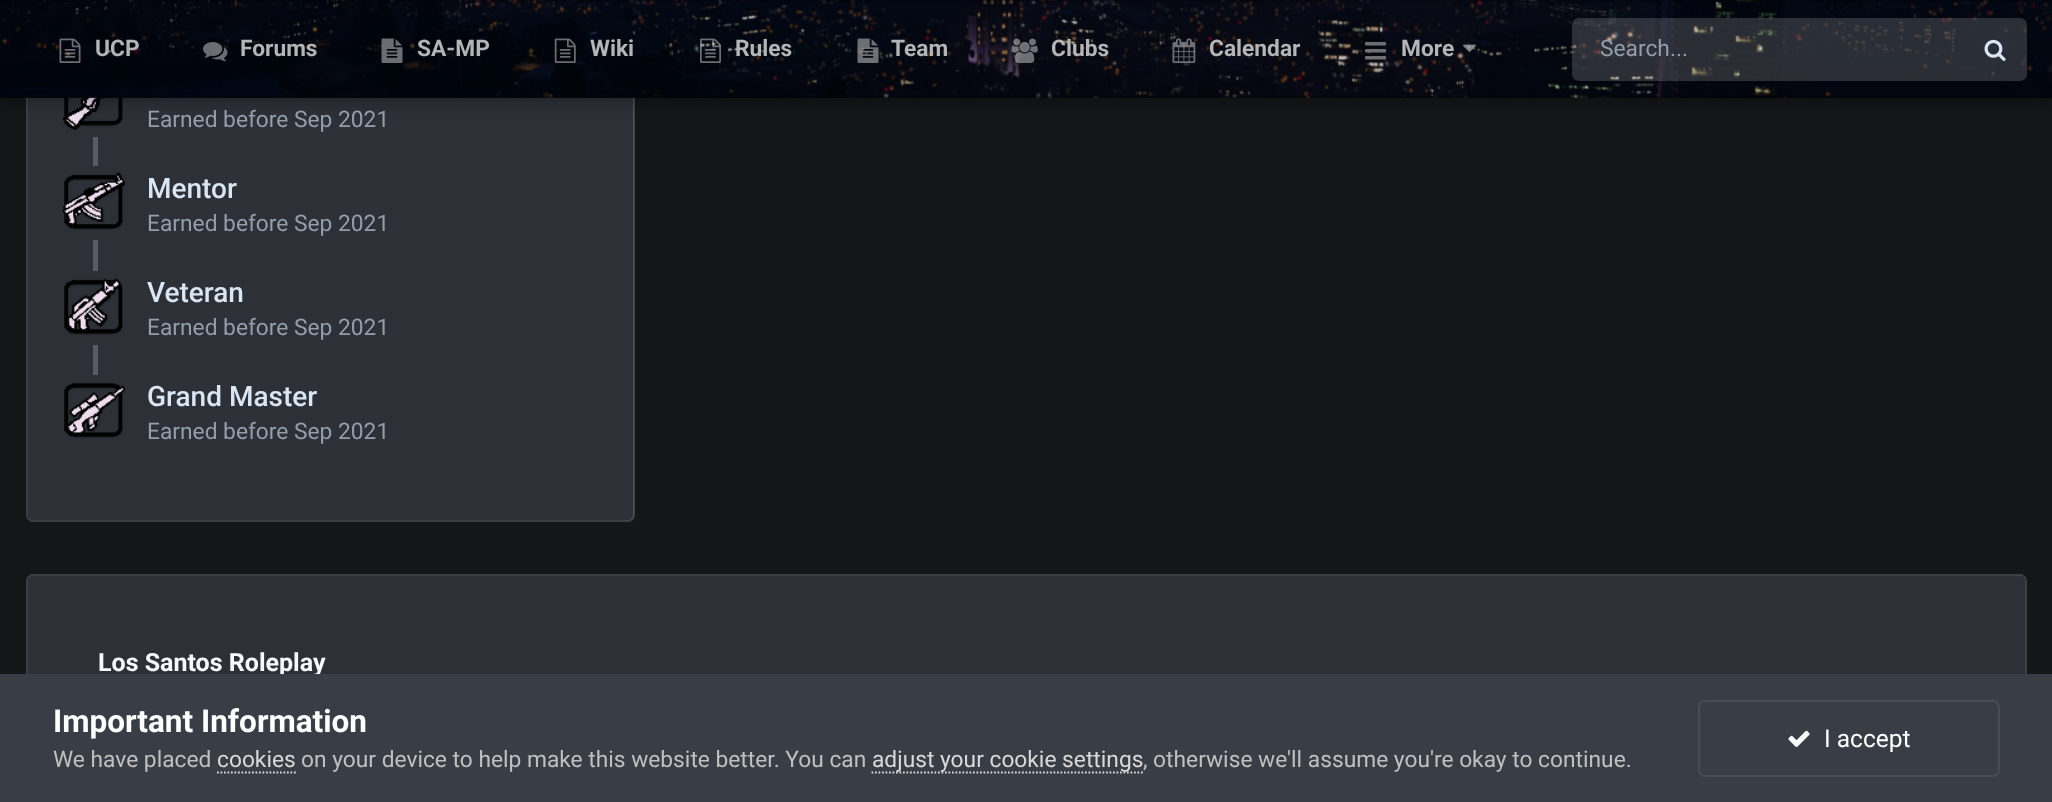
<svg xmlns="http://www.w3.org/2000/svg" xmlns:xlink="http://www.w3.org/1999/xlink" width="2052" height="802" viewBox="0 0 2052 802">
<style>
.cls-1{font:bold 22.75px Roboto;fill:#b4b5b7}
.cls-2{font:22.75px Roboto;fill:#939dac}
.cls-3{font:500 28px Roboto;fill:#dae6f3}
.cls-4{font:bold 25px Roboto;fill:#f7fafe}
.cls-5{font:bold 31.5px Roboto;fill:#ffffff}
.cls-6{font:22.75px Roboto;fill:#c0c0c0}
.cls-7{font:22.75px Roboto;fill:#dadada}
.cls-8{font:24.5px Roboto;fill:#ffffff}
</style>
<rect width="100%" height="100%" fill="#151617"/>
<rect fill="#2d3037" x="28" y="-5" width="606" height="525" rx="5"/>
<rect fill="none" stroke="#dae6f3" stroke-opacity="0.2" stroke-width="2" x="27" y="-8" width="607" height="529" rx="6"/>
<image xlink:href="image12.png" x="63" y="97" width="61" height="33"/>
<rect fill="#000000" fill-opacity="0.35" filter="blur(9px)" x="0" y="-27" width="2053" height="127"/>
<image xlink:href="image0.png" x="0" y="0" width="2052" height="98"/>
<rect fill="#000000" fill-opacity="0.2" x="0" y="0" width="2052" height="98"/>
<rect fill="#000000" fill-opacity="0.2" x="0" y="0" width="2052" height="2"/>
<rect fill="#000000" fill-opacity="0.2" x="0" y="96" width="2052" height="2"/>
<image xlink:href="image1.png" x="59" y="38" width="22" height="25"/>
<image xlink:href="image2.png" x="203" y="42" width="25" height="20"/>
<image xlink:href="image3.png" x="381" y="38" width="22" height="25"/>
<image xlink:href="image4.png" x="554" y="38" width="22" height="25"/>
<image xlink:href="image5.png" x="700" y="38" width="21" height="25"/>
<image xlink:href="image6.png" x="857" y="38" width="22" height="25"/>
<image xlink:href="image7.png" x="1011" y="38" width="27" height="25"/>
<image xlink:href="image8.png" x="1172" y="38" width="24" height="25"/>
<image xlink:href="image9.png" x="1365" y="42" width="21" height="18"/>
<image xlink:href="image10.png" x="1463" y="44" width="13" height="8"/>
<rect fill="#ffffff" fill-opacity="0.16" x="1572" y="18" width="455" height="63" rx="7"/>
<image xlink:href="image11.png" x="1984" y="39" width="22" height="22"/>
<rect fill="#565c66" x="93" y="137" width="5" height="238"/>
<rect fill="#2d3037" x="93" y="166" width="5" height="74"/>
<image xlink:href="image13.png" x="63" y="172" width="62" height="58"/>
<rect fill="#2d3037" x="93" y="271" width="5" height="74"/>
<image xlink:href="image14.png" x="64" y="278" width="59" height="57"/>
<image xlink:href="image15.png" x="64" y="383" width="62" height="55"/>
<rect fill="#2d3037" x="28" y="576" width="1997" height="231" rx="5"/>
<rect fill="none" stroke="#dae6f3" stroke-opacity="0.2" stroke-width="2" x="27" y="575" width="1999" height="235" rx="6"/>
<text class="cls-1" x="95" y="56">UCP</text>
<text class="cls-1" x="240" y="56">Forums</text>
<text class="cls-1" x="417" y="56">SA-MP</text>
<text class="cls-1" x="590" y="56">Wiki</text>
<text class="cls-1" x="735" y="56">Rules</text>
<text class="cls-1" x="891" y="56">Team</text>
<text class="cls-1" x="1051" y="56">Clubs</text>
<text class="cls-1" x="1209" y="56">Calendar</text>
<text class="cls-1" x="1401" y="56">More</text>
<text class="cls-2" x="1600" y="56">Search...</text>
<text class="cls-2" x="147" y="127">Earned before Sep 2021</text>
<text class="cls-3" x="147" y="198">Mentor</text>
<text class="cls-2" x="147" y="231">Earned before Sep 2021</text>
<text class="cls-3" x="147" y="302">Veteran</text>
<text class="cls-2" x="147" y="335">Earned before Sep 2021</text>
<text class="cls-3" x="147" y="406">Grand Master</text>
<text class="cls-2" x="147" y="439">Earned before Sep 2021</text>
<text class="cls-4" x="98" y="671">Los Santos Roleplay</text>
<rect fill="#393d46" x="0" y="674" width="2052" height="128"/>
<text class="cls-5" x="53" y="732">Important Information</text>
<text class="cls-6" x="53" y="767">We have placed</text>
<text class="cls-7" x="217" y="767">cookies</text>
<path fill="none" stroke="#dadada" stroke-width="1.8" stroke-dasharray="1.75 1.75" d="M217 772.5H296"/>
<text class="cls-6" x="301" y="767">on your device to help make this website better. You can</text>
<path fill="none" stroke="#dadada" stroke-width="1.8" stroke-dasharray="1.75 1.75" d="M871.5 772.5H1143"/>
<text class="cls-7" x="872" y="767">adjust your cookie settings</text>
<text class="cls-6" x="1143" y="767">, otherwise we'll assume you're okay to continue.</text>
<rect fill="none" stroke="#484c54" stroke-width="2" x="1699" y="701" width="300" height="75" rx="6"/>
<image xlink:href="image16.png" x="1788" y="730" width="22" height="17"/>
<text class="cls-8" x="1824" y="747">I accept</text>
</svg>
